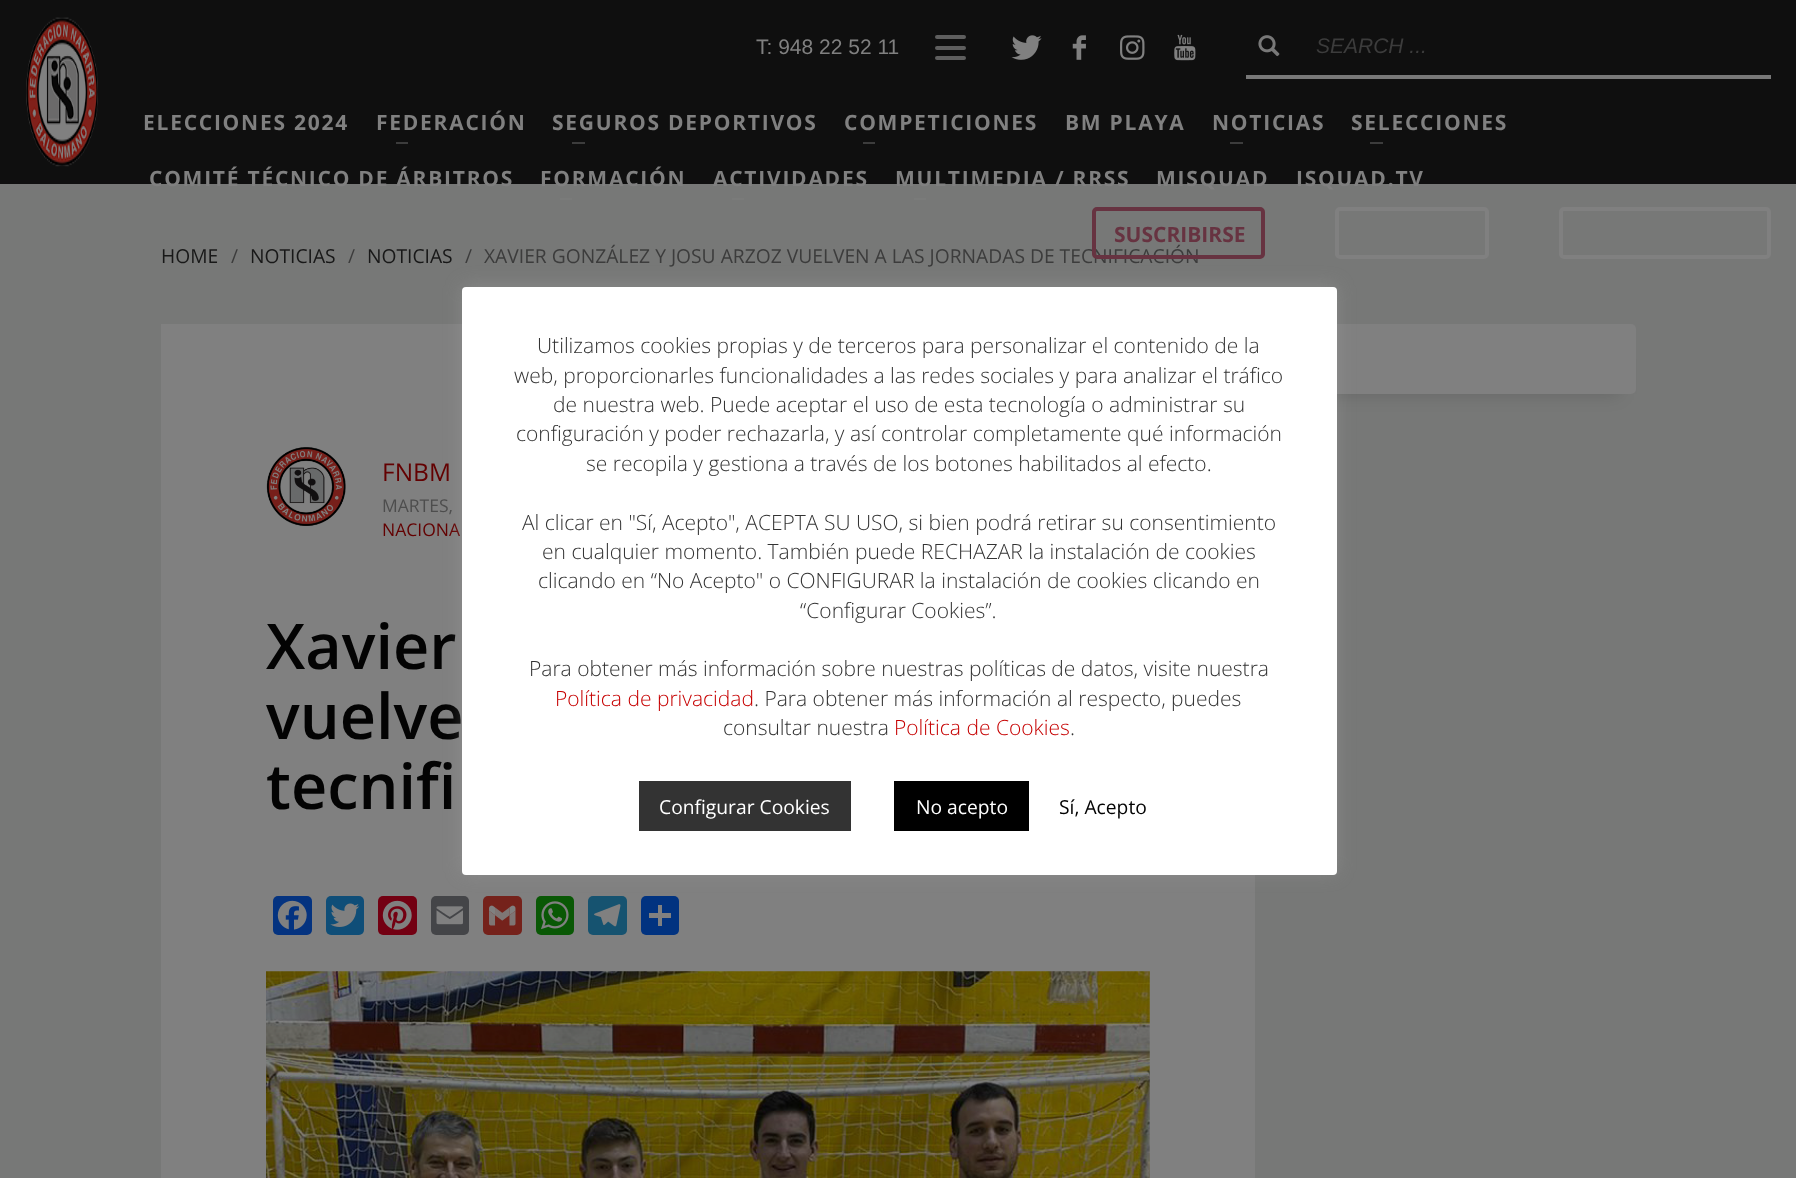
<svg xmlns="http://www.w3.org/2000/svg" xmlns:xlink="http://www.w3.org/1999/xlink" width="1796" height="1178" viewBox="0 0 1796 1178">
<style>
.cls-1{font:21px Liberation Sans;fill:#808080}
.cls-2{font:italic 21px Liberation Sans;fill:#3c3c3c}
.cls-3{font:bold 21px Open Sans;letter-spacing:1.75px;fill:#808080}
.cls-4{font:19.25px Open Sans;fill:#181818}
.cls-5{font:19.25px Open Sans;fill:#3c3c3c}
.cls-6{font:bold 21px Open Sans;fill:#673341}
.cls-7{font:24.5px Open Sans;fill:#630001}
.cls-8{font:17.5px Open Sans;fill:#4d4d4d}
.cls-9{font:17.5px Open Sans;fill:#630001}
.cls-10{font:600 63px Open Sans;fill:#030303}
.cls-11{font:300 21px Open Sans;fill:#333333}
.cls-12{font:300 21px Open Sans;fill:#c60001}
.cls-13{font:19.25px Open Sans;fill:#ffffff}
.cls-14{font:19.25px Open Sans;fill:#030303}
</style>
<rect width="100%" height="100%" fill="#777877"/>
<rect fill="#0f0f0f" x="0" y="0" width="1796" height="184"/>
<image xlink:href="image0.png" x="26" y="17" width="72" height="150"/>
<rect fill="#5e5e5e" x="935" y="56" width="31" height="4" rx="2"/>
<rect fill="#5e5e5e" x="935" y="46" width="31" height="4" rx="2"/>
<rect fill="#5e5e5e" x="935" y="35" width="31" height="4" rx="2"/>
<image xlink:href="image1.png" x="1011" y="35" width="31" height="25"/>
<image xlink:href="image2.png" x="1072" y="35" width="14" height="25"/>
<image xlink:href="image3.png" x="1120" y="35" width="25" height="25"/>
<image xlink:href="image4.png" x="1174" y="34" width="22" height="27"/>
<image xlink:href="image5.png" x="1258" y="35" width="22" height="22"/>
<rect fill="#787878" x="1246" y="75" width="525" height="4"/>
<rect fill="#3c3c3c" x="396" y="142" width="12" height="2"/>
<rect fill="#3c3c3c" x="572" y="142" width="13" height="2"/>
<rect fill="#3c3c3c" x="863" y="142" width="12" height="2"/>
<rect fill="#3c3c3c" x="1230" y="142" width="13" height="2"/>
<rect fill="#3c3c3c" x="1370" y="142" width="13" height="2"/>
<rect fill="#7a7b7a" x="560" y="198" width="12" height="2"/>
<rect fill="#7a7b7a" x="732" y="198" width="12" height="2"/>
<rect fill="#7a7b7a" x="914" y="198" width="12" height="2"/>
<rect fill="none" stroke="#808080" stroke-width="4" x="1337" y="209" width="150" height="48" rx="3"/>
<rect fill="none" stroke="#808080" stroke-width="4" x="1561" y="209" width="208" height="48" rx="3"/>
<rect fill="#000000" fill-opacity="0.15" filter="blur(9px)" x="1325" y="359" width="294" height="35"/>
<rect fill="#808080" x="1307" y="324" width="329" height="70" rx="5"/>
<rect fill="#808080" x="161" y="324" width="1094" height="854"/>
<image xlink:href="image6.png" x="266" y="447" width="80" height="79"/>
<rect fill="#043380" x="273" y="896" width="39" height="39" rx="5"/>
<image xlink:href="image7.png" x="277" y="900" width="30" height="30"/>
<rect fill="#0f4e78" x="326" y="896" width="38" height="39" rx="5"/>
<image xlink:href="image8.png" x="330" y="903" width="29" height="24"/>
<rect fill="#730012" x="378" y="896" width="39" height="39" rx="5"/>
<image xlink:href="image9.png" x="382" y="900" width="30" height="30"/>
<rect fill="#444548" x="431" y="896" width="38" height="39" rx="5"/>
<image xlink:href="image10.png" x="436" y="906" width="27" height="19"/>
<rect fill="#75221b" x="483" y="896" width="39" height="39" rx="5"/>
<image xlink:href="image11.png" x="489" y="905" width="27" height="21"/>
<rect fill="#095805" x="536" y="896" width="38" height="39" rx="5"/>
<image xlink:href="image12.png" x="541" y="901" width="28" height="29"/>
<rect fill="#165370" x="588" y="896" width="39" height="39" rx="5"/>
<image xlink:href="image13.png" x="594" y="904" width="27" height="23"/>
<rect fill="#013380" x="641" y="896" width="38" height="39" rx="5"/>
<rect fill="#808080" x="658" y="905" width="4" height="21"/>
<rect fill="#808080" x="649" y="913" width="22" height="5"/>
<image xlink:href="image14.png" x="266" y="971" width="884" height="207"/>
<text class="cls-1" x="756" y="54">T: 948 22 52 11</text>
<text class="cls-2" x="1316" y="53">SEARCH ...</text>
<text class="cls-3" x="143" y="130">ELECCIONES 2024</text>
<text class="cls-3" x="376" y="130">FEDERACIÓN</text>
<text class="cls-3" x="552" y="130">SEGUROS DEPORTIVOS</text>
<text class="cls-3" x="844" y="130">COMPETICIONES</text>
<text class="cls-3" x="1065" y="130">BM PLAYA</text>
<text class="cls-3" x="1212" y="130">NOTICIAS</text>
<text class="cls-3" x="1351" y="130">SELECCIONES</text>
<text class="cls-3" x="149" y="186">COMITÉ TÉCNICO DE ÁRBITROS</text>
<text class="cls-3" x="540" y="186">FORMACIÓN</text>
<text class="cls-3" x="713" y="186">ACTIVIDADES</text>
<text class="cls-3" x="895" y="186">MULTIMEDIA / RRSS</text>
<text class="cls-3" x="1156" y="186">MISQUAD</text>
<text class="cls-3" x="1296" y="186">ISQUAD.TV</text>
<text class="cls-4" x="161" y="263">HOME</text>
<text class="cls-5" x="231" y="263">/</text>
<text class="cls-4" x="250" y="263">NOTICIAS</text>
<text class="cls-5" x="348" y="263">/</text>
<text class="cls-4" x="367" y="263">NOTICIAS</text>
<text class="cls-5" x="465" y="263">/</text>
<text class="cls-5" x="484" y="263">XAVIER GONZÁLEZ Y JOSU ARZOZ VUELVEN A LAS JORNADAS DE TECNIFICACIÓN</text>
<rect fill="none" stroke="#673341" stroke-width="4" x="1094" y="209" width="169" height="48" rx="3"/>
<text class="cls-6" x="1114" y="242">SUSCRIBIRSE</text>
<text class="cls-7" x="382" y="481">FNBM</text>
<text class="cls-8" x="382" y="512">MARTES,</text>
<text class="cls-9" x="382" y="536">NACIONA</text>
<text class="cls-10"><tspan x="266" y="669">Xavier</tspan><tspan x="266" y="739">vuelve</tspan><tspan x="266" y="809">tecnifi</tspan></text>
<rect fill="#acabab" fill-opacity="0.3" filter="blur(9px)" x="462" y="285" width="875" height="588" rx="4"/>
<rect fill="#ffffff" x="462" y="287" width="875" height="588" rx="4"/>
<text class="cls-11" x="537" y="353">Utilizamos cookies propias y de terceros para personalizar el contenido de la</text>
<text class="cls-11" x="514" y="383">web, proporcionarles funcionalidades a las redes sociales y para analizar el tráfico</text>
<text class="cls-11" x="553" y="412">de nuestra web. Puede aceptar el uso de esta tecnología o administrar su</text>
<text class="cls-11" x="516" y="441">configuración y poder rechazarla, y así controlar completamente qué información</text>
<text class="cls-11" x="586" y="471">se recopila y gestiona a través de los botones habilitados al efecto.</text>
<text class="cls-11" x="522" y="530">Al clicar en "Sí, Acepto", ACEPTA SU USO, si bien podrá retirar su consentimiento</text>
<text class="cls-11" x="542" y="559">en cualquier momento. También puede RECHAZAR la instalación de cookies</text>
<text class="cls-11" x="538" y="588">clicando en “No Acepto" o CONFIGURAR la instalación de cookies clicando en</text>
<text class="cls-11" x="800" y="618">“Configurar Cookies”.</text>
<text class="cls-11" x="529" y="676">Para obtener más información sobre nuestras políticas de datos, visite nuestra</text>
<text class="cls-12" x="555" y="706">Política de privacidad</text>
<text class="cls-11" x="754" y="706">. Para obtener más información al respecto, puedes</text>
<text class="cls-11" x="723" y="735">consultar nuestra</text>
<text class="cls-12" x="894" y="735">Política de Cookies</text>
<text class="cls-11" x="1070" y="735">.</text>
<rect fill="#333333" x="639" y="781" width="212" height="50"/>
<text class="cls-13" x="659" y="814">Configurar Cookies</text>
<rect fill="#000000" x="894" y="781" width="135" height="50"/>
<text class="cls-13" x="916" y="814">No acepto</text>
<text class="cls-14" x="1059" y="814">Sí, Acepto</text>
</svg>
